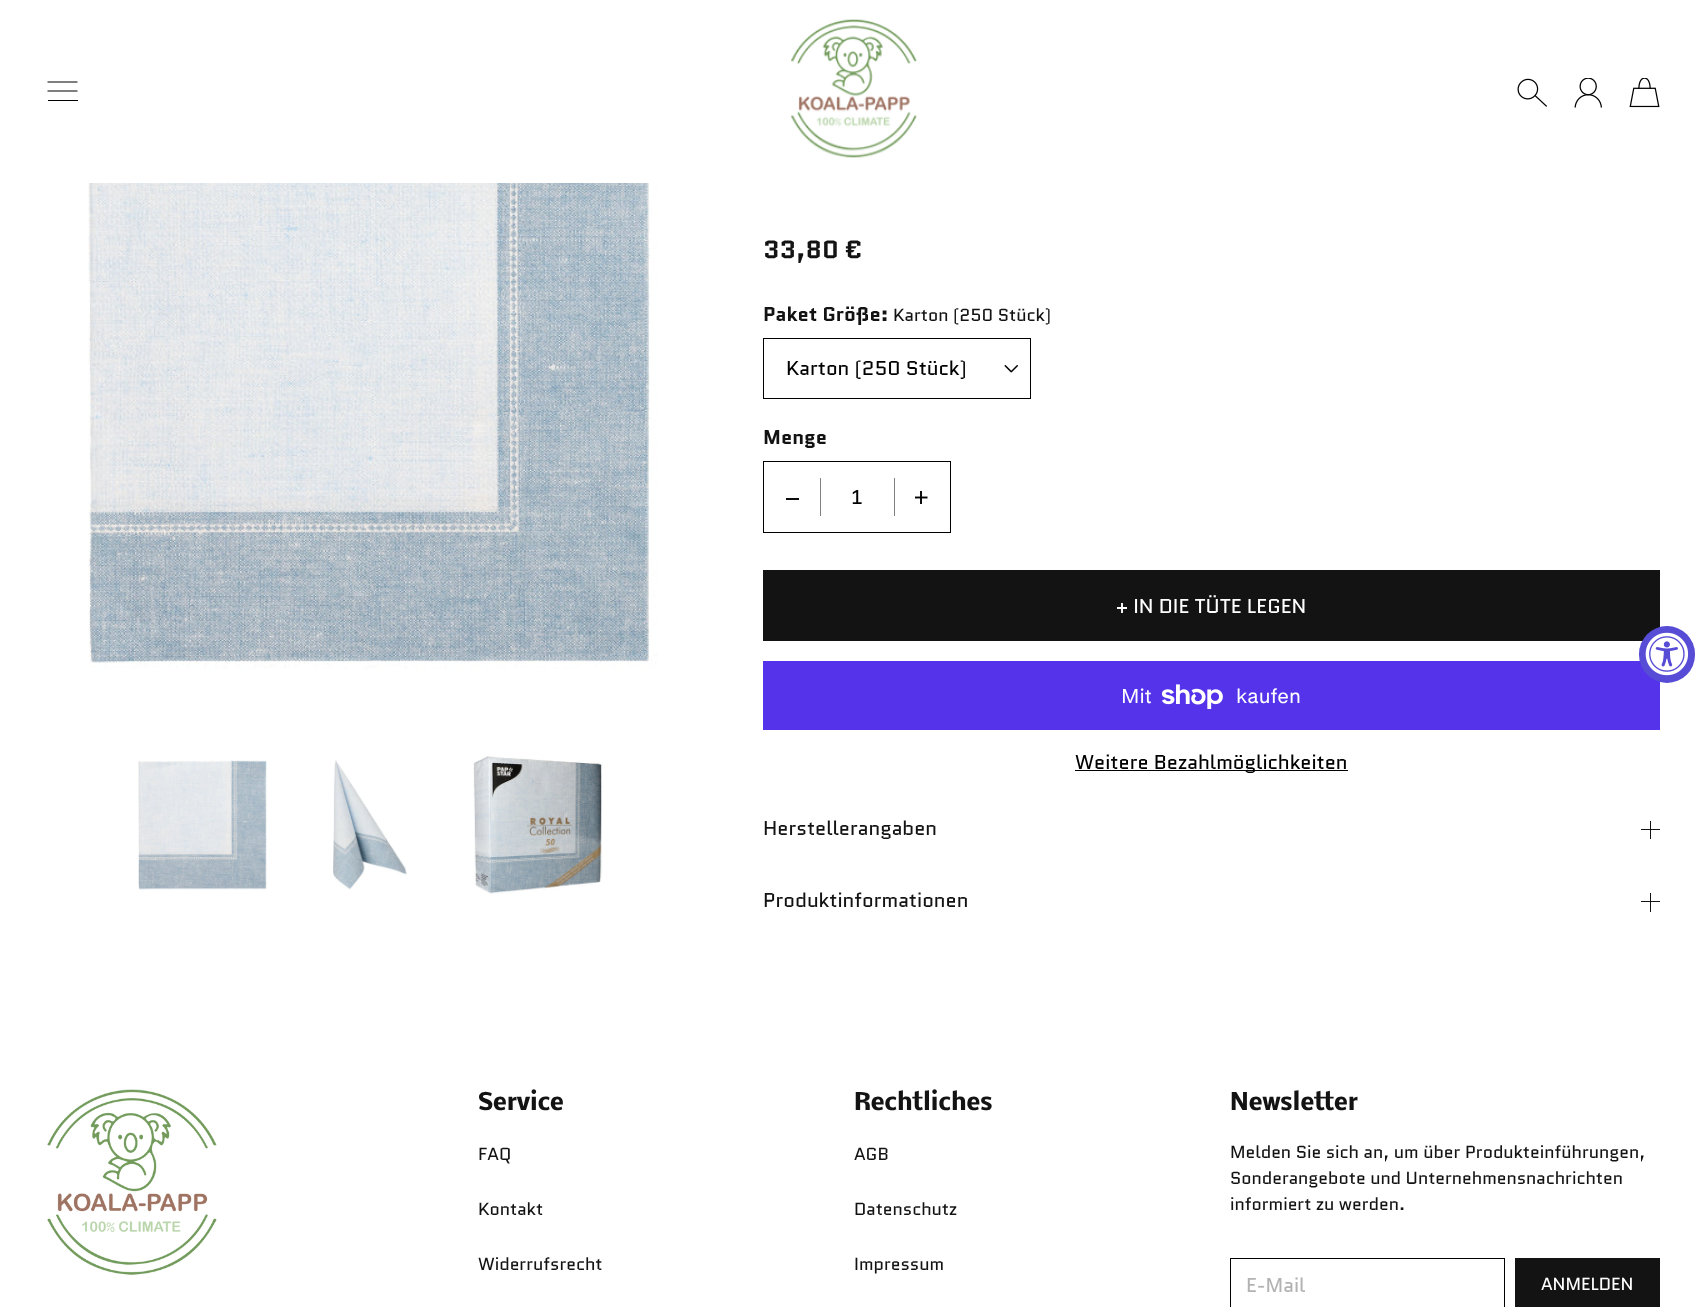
<svg xmlns="http://www.w3.org/2000/svg" xmlns:xlink="http://www.w3.org/1999/xlink" width="1707" height="1307" viewBox="0 0 1707 1307">
<style>
.cls-1{font:bold 25px Quantico;fill:#131313}
.cls-2{font:bold 20px Quantico;fill:#131313}
.cls-3{font:17.5px Quantico;fill:#131313}
.cls-4{font:20px Quantico;fill:#000000}
.cls-5{font:20px Quantico;fill:#ffffff}
.cls-6{font:20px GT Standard;fill:#ffffff}
.cls-7{font:20px Quantico;fill:#131313}
.cls-8{font:bold 22.5px Nobile;fill:#131313}
.cls-9{font:20px Quantico;fill:#b3b3b3}
.cls-10{font:17.5px Quantico;fill:#ffffff}
</style>
<rect width="100%" height="100%" fill="#ffffff"/>
<path fill="none" stroke="#000000" stroke-width="1.2" d="M47.5 82H77.5M47.5 91H77.5"/>
<rect fill="#000000" x="48" y="100" width="30" height="1"/>
<image xlink:href="image0.png" x="791" y="19" width="126" height="139"/>
<image xlink:href="image1.png" x="1517" y="78" width="30" height="29"/>
<image xlink:href="image2.png" x="1574" y="78" width="28" height="30"/>
<image xlink:href="image3.png" x="1629" y="78" width="31" height="30"/>
<image xlink:href="image4.png" x="88" y="183" width="570" height="486"/>
<image xlink:href="image5.png" x="138" y="760" width="129" height="130"/>
<image xlink:href="image6.png" x="333" y="760" width="74" height="130"/>
<image xlink:href="image7.png" x="473" y="756" width="130" height="138"/>
<image xlink:href="image8.png" x="1004" y="365" width="14" height="8"/>
<rect fill="none" stroke="#000000" x="763.5" y="338.5" width="267" height="60"/>
<rect fill="none" stroke="#000000" x="763.5" y="461.5" width="187" height="71"/>
<rect fill="#0d0d0d" x="786" y="498" width="13" height="2"/>
<rect fill="#808080" x="894" y="478" width="1" height="38"/>
<rect fill="#808080" x="820" y="478" width="1" height="38"/>
<path fill="none" stroke="#000000" stroke-width="1.9" d="M915 497.5H927.5"/>
<rect fill="#000000" fill-opacity="0.95" x="920" y="491" width="2" height="13"/>
<rect fill="#131313" x="763" y="570" width="897" height="71"/>
<rect fill="#5433eb" x="763" y="661" width="897" height="69"/>
<image xlink:href="image9.png" x="1161" y="684" width="62" height="25"/>
<rect fill="#000000" x="1075" y="770" width="273" height="1"/>
<rect fill="#131313" x="1641" y="829" width="19" height="1"/>
<rect fill="#131313" x="1650" y="821" width="1" height="18"/>
<rect fill="#131313" x="1641" y="901" width="19" height="1"/>
<rect fill="#131313" x="1650" y="893" width="1" height="19"/>
<rect fill="#574cd5" x="1639" y="626" width="56" height="57" rx="28"/>
<image xlink:href="image10.png" x="1645" y="632" width="44" height="44"/>
<image xlink:href="image11.png" x="47" y="1089" width="170" height="186"/>
<rect fill="none" stroke="#000000" x="1230.5" y="1258.5" width="274" height="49"/>
<rect fill="#131313" x="1515" y="1258" width="145" height="49"/>
<text class="cls-1" x="763" y="258">33,80 €</text>
<text class="cls-2" x="763" y="321">Paket Größe:</text>
<text class="cls-3" x="893" y="321">Karton (250 Stück)</text>
<text class="cls-4" x="786" y="375">Karton (250 Stück)</text>
<text class="cls-2" x="763" y="444">Menge</text>
<text class="cls-4" x="851" y="504">1</text>
<text class="cls-5" x="1116" y="613">+ IN DIE TÜTE LEGEN</text>
<text class="cls-6" x="1121" y="703">Mit</text>
<text class="cls-6" x="1236" y="703">kaufen</text>
<text class="cls-4" x="1075" y="769">Weitere Bezahlmöglichkeiten</text>
<text class="cls-7" x="763" y="835">Herstellerangaben</text>
<text class="cls-7" x="763" y="907">Produktinformationen</text>
<text class="cls-8" x="478" y="1110">Service</text>
<text class="cls-3" x="478" y="1160">FAQ</text>
<text class="cls-3" x="478" y="1215">Kontakt</text>
<text class="cls-3" x="478" y="1270">Widerrufsrecht</text>
<text class="cls-8" x="854" y="1110">Rechtliches</text>
<text class="cls-3" x="854" y="1160">AGB</text>
<text class="cls-3" x="854" y="1215">Datenschutz</text>
<text class="cls-3" x="854" y="1270">Impressum</text>
<text class="cls-8" x="1230" y="1110">Newsletter</text>
<text class="cls-3"><tspan x="1230" y="1158">Melden Sie sich an, um über Produkteinführungen,</tspan><tspan x="1230" y="1184">Sonderangebote und Unternehmensnachrichten</tspan><tspan x="1230" y="1210">informiert zu werden.</tspan></text>
<text class="cls-9" x="1246" y="1292">E-Mail</text>
<text class="cls-10" x="1541" y="1290">ANMELDEN</text>
</svg>
